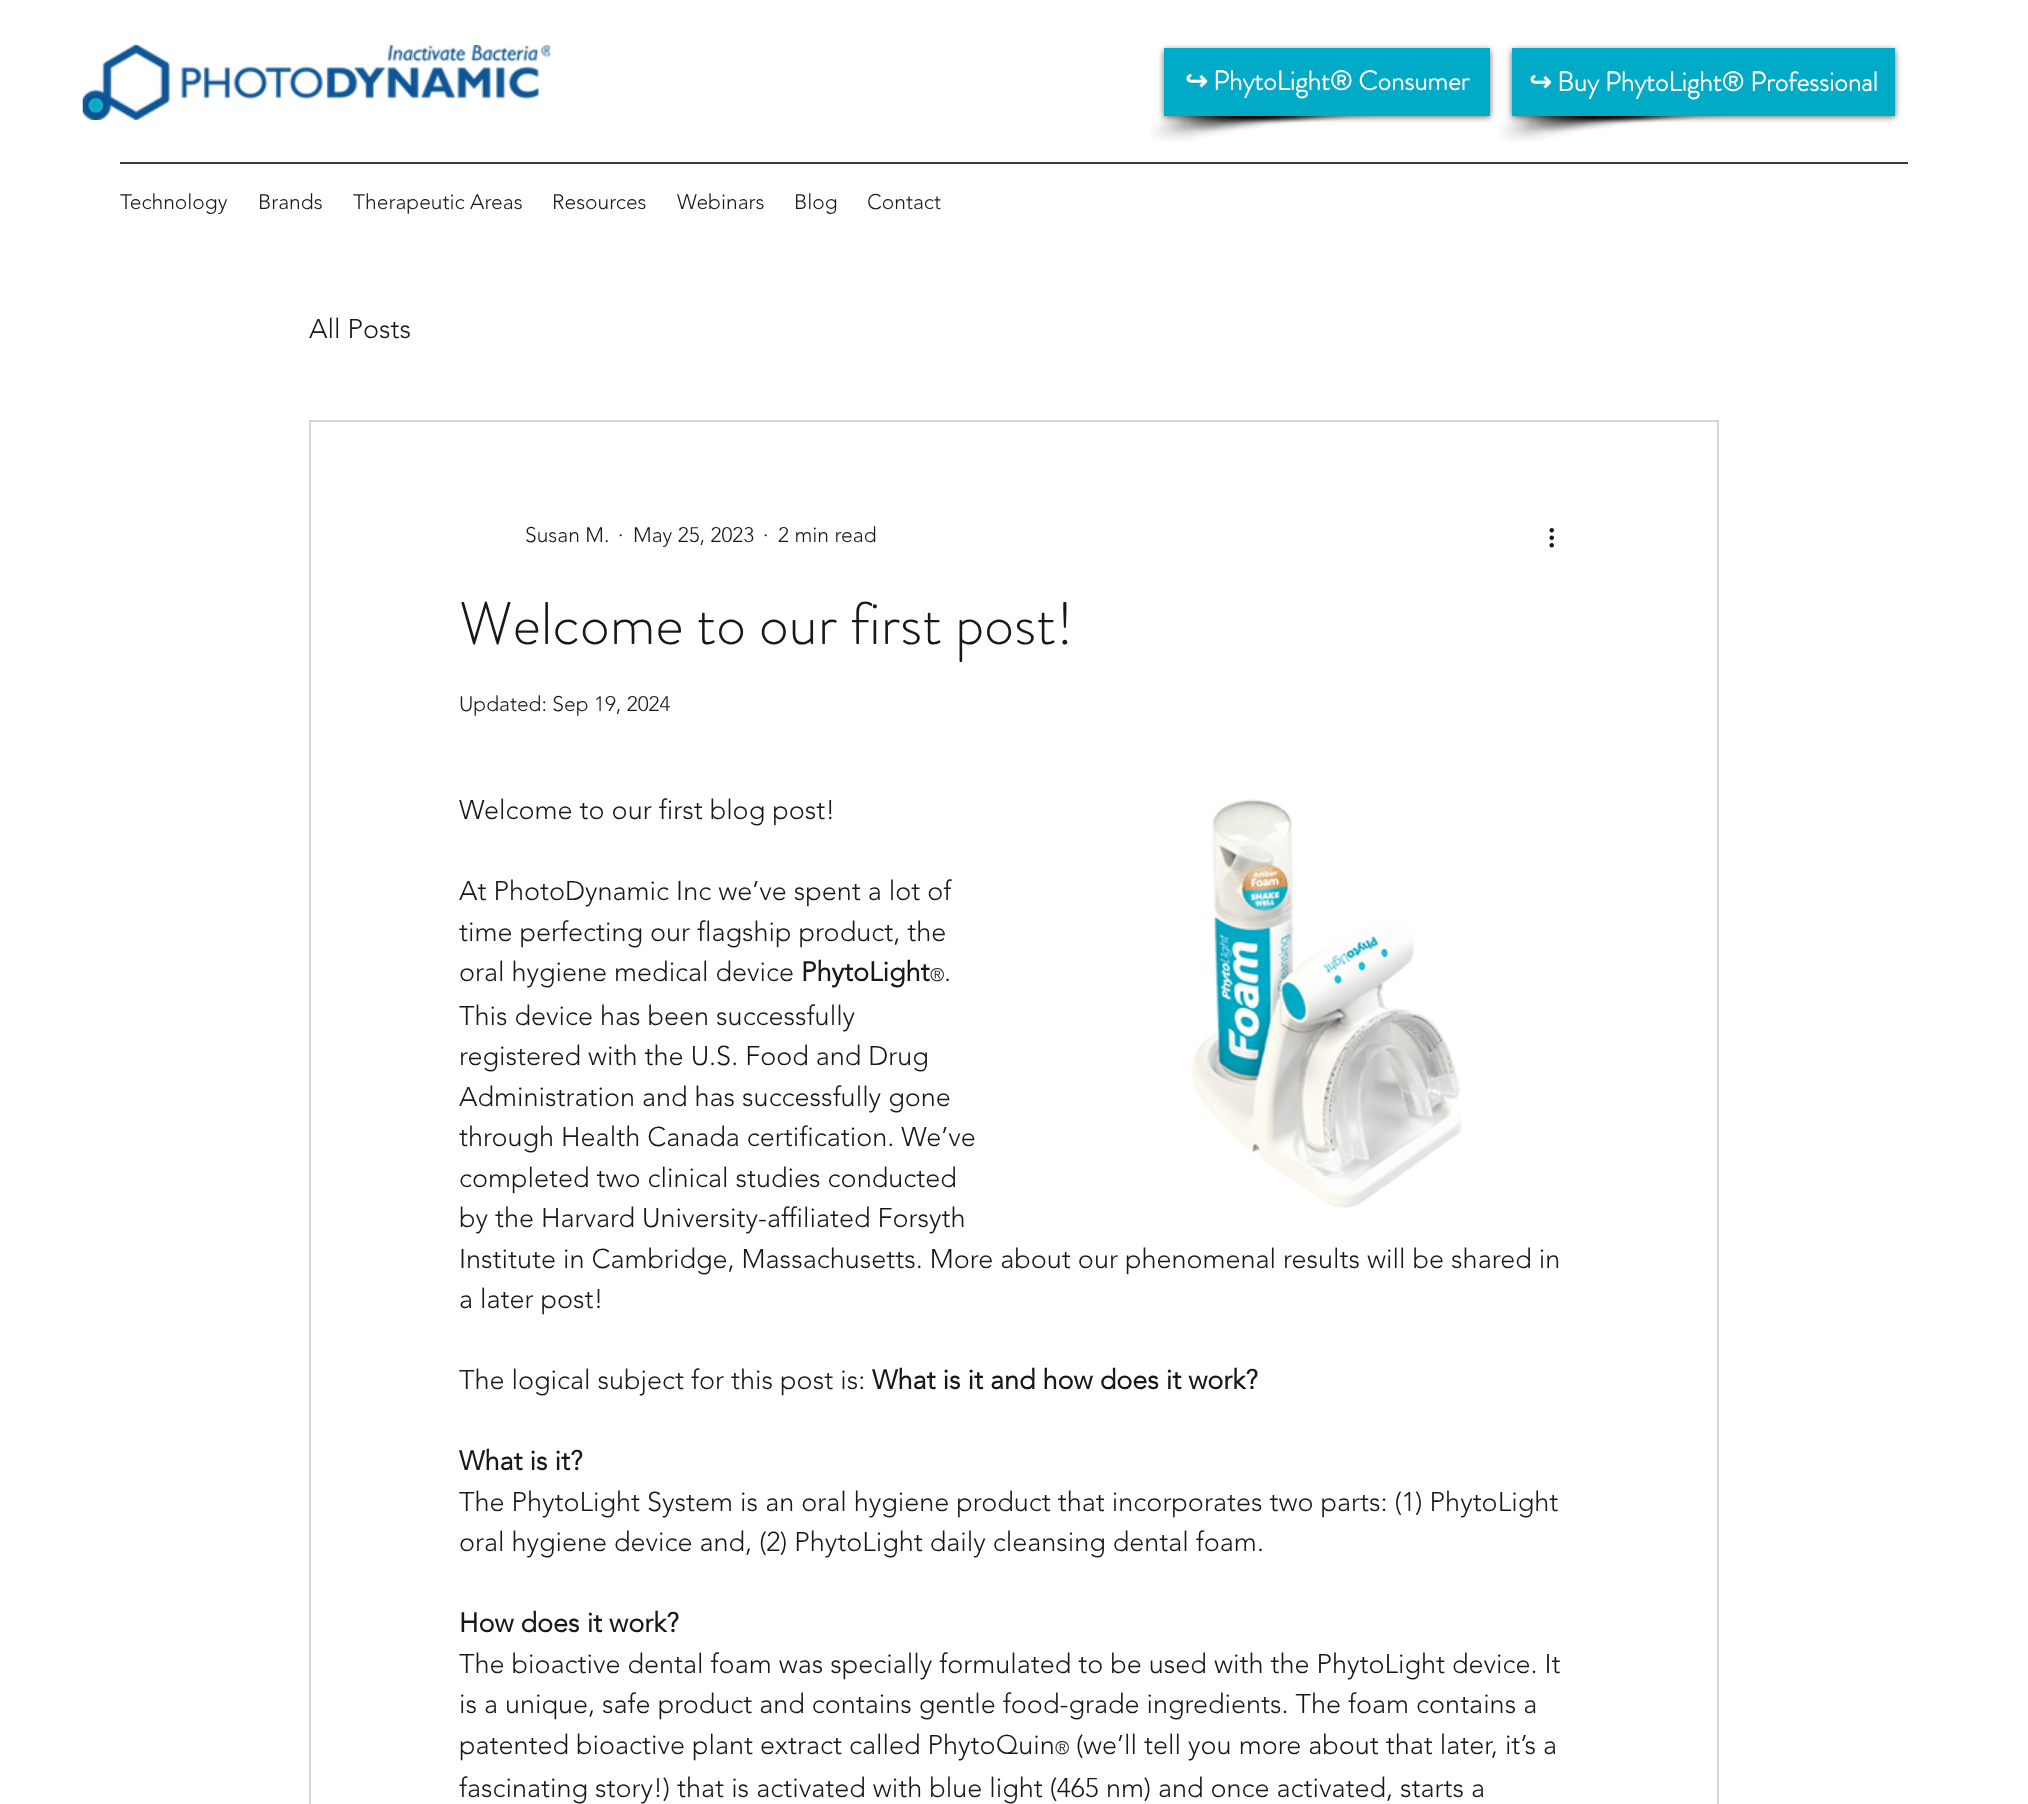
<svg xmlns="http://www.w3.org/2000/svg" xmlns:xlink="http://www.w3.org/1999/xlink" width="2028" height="1804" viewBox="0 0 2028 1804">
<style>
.cls-1{font:bold 27px DejaVu Sans;fill:#ffffff}
.cls-2{font:bold 27px 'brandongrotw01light';fill:#ffffff}
.cls-3{font:300 21px 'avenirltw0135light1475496';fill:#181818}
.cls-4{font:300 27px 'avenirltw0135light1475496';fill:#181818}
.cls-5{font:300 60px 'brandongrotw01light';fill:#181818}
.cls-6{font:bold 27px 'avenirltw0135light1475496';fill:#181818}
.cls-7{font:300 18px 'avenirltw0135light1475496';fill:#181818}
</style>
<rect width="100%" height="100%" fill="#ffffff"/>
<image xlink:href="image0.png" x="82" y="45" width="469" height="75"/>
<image xlink:href="image1.png" x="1151" y="116" width="223" height="26"/>
<rect fill="#000000" fill-opacity="0.6" filter="blur(3px)" x="1164" y="50" width="326" height="67"/>
<rect fill="#01abc7" x="1164" y="48" width="326" height="68"/>
<image xlink:href="image2.png" x="1499" y="116" width="223" height="26"/>
<rect fill="#000000" fill-opacity="0.6" filter="blur(3px)" x="1512" y="50" width="383" height="67"/>
<rect fill="#01abc7" x="1512" y="48" width="383" height="68"/>
<rect fill="#3b3b3b" x="120" y="162" width="1788" height="2"/>
<rect fill="none" stroke="#d4d4d4" stroke-width="2" x="310" y="421" width="1408" height="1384"/>
<image xlink:href="image3.png" x="1549" y="528" width="5" height="20"/>
<image xlink:href="image4.png" x="1191" y="799" width="271" height="409"/>
<text class="cls-1" x="1185" y="90">↪︎</text>
<text class="cls-2" x="1213" y="90">PhytoLight® Consumer</text>
<text class="cls-1" x="1529" y="91">↪︎</text>
<text class="cls-2" x="1557" y="91">Buy PhytoLight® Professional</text>
<text class="cls-3" x="120" y="209">Technology</text>
<text class="cls-3" x="258" y="209">Brands</text>
<text class="cls-3" x="353" y="209">Therapeutic Areas</text>
<text class="cls-3" x="552" y="209">Resources</text>
<text class="cls-3" x="677" y="209">Webinars</text>
<text class="cls-3" x="794" y="209">Blog</text>
<text class="cls-3" x="867" y="209">Contact</text>
<text class="cls-4" x="309" y="338">All Posts</text>
<text class="cls-3" x="525" y="542">Susan M.</text>
<text class="cls-3" x="618" y="542">·</text>
<text class="cls-3" x="633" y="542">May 25, 2023</text>
<text class="cls-3" x="763" y="542">·</text>
<text class="cls-3" x="778" y="542">2 min read</text>
<text class="cls-5" x="459" y="644">Welcome to our first post!</text>
<text class="cls-3" x="459" y="711">Updated: Sep 19, 2024</text>
<text class="cls-4" x="459" y="819">Welcome to our first blog post!</text>
<text class="cls-4"><tspan x="459" y="900">At PhotoDynamic Inc we’ve spent a lot of</tspan><tspan x="459" y="941">time perfecting our flagship product, the</tspan><tspan x="459" y="981">oral hygiene medical device</tspan></text>
<text class="cls-6" x="801" y="981">PhytoLight</text>
<text class="cls-7" x="930" y="981">®</text>
<text class="cls-4" x="944" y="981">.</text>
<text class="cls-4"><tspan x="459" y="1025">This device has been successfully</tspan><tspan x="459" y="1065">registered with the U.S. Food and Drug</tspan><tspan x="459" y="1106">Administration and has successfully gone</tspan><tspan x="459" y="1146">through Health Canada certification. We’ve</tspan><tspan x="459" y="1187">completed two clinical studies conducted</tspan><tspan x="459" y="1227">by the Harvard University-affiliated Forsyth</tspan><tspan x="459" y="1268">Institute in Cambridge, Massachusetts. More about our phenomenal results will be shared in</tspan><tspan x="459" y="1308">a later post!</tspan></text>
<text class="cls-4" x="459" y="1389">The logical subject for this post is:</text>
<text class="cls-6" x="872" y="1389">What is it and how does it work?</text>
<text class="cls-6" x="459" y="1470">What is it?</text>
<text class="cls-4"><tspan x="459" y="1511">The PhytoLight System is an oral hygiene product that incorporates two parts: (1) PhytoLight</tspan><tspan x="459" y="1551">oral hygiene device and, (2) PhytoLight daily cleansing dental foam.</tspan></text>
<text class="cls-6" x="459" y="1632">How does it work?</text>
<text class="cls-4"><tspan x="459" y="1673">The bioactive dental foam was specially formulated to be used with the PhytoLight device. It</tspan><tspan x="459" y="1713">is a unique, safe product and contains gentle food-grade ingredients. The foam contains a</tspan><tspan x="459" y="1754">patented bioactive plant extract called PhytoQuin</tspan></text>
<text class="cls-7" x="1055" y="1754">®</text>
<text class="cls-4" x="1076" y="1754">(we’ll tell you more about that later, it’s a</text>
<text class="cls-4" x="459" y="1797">fascinating story!) that is activated with blue light (465 nm) and once activated, starts a</text>
</svg>
